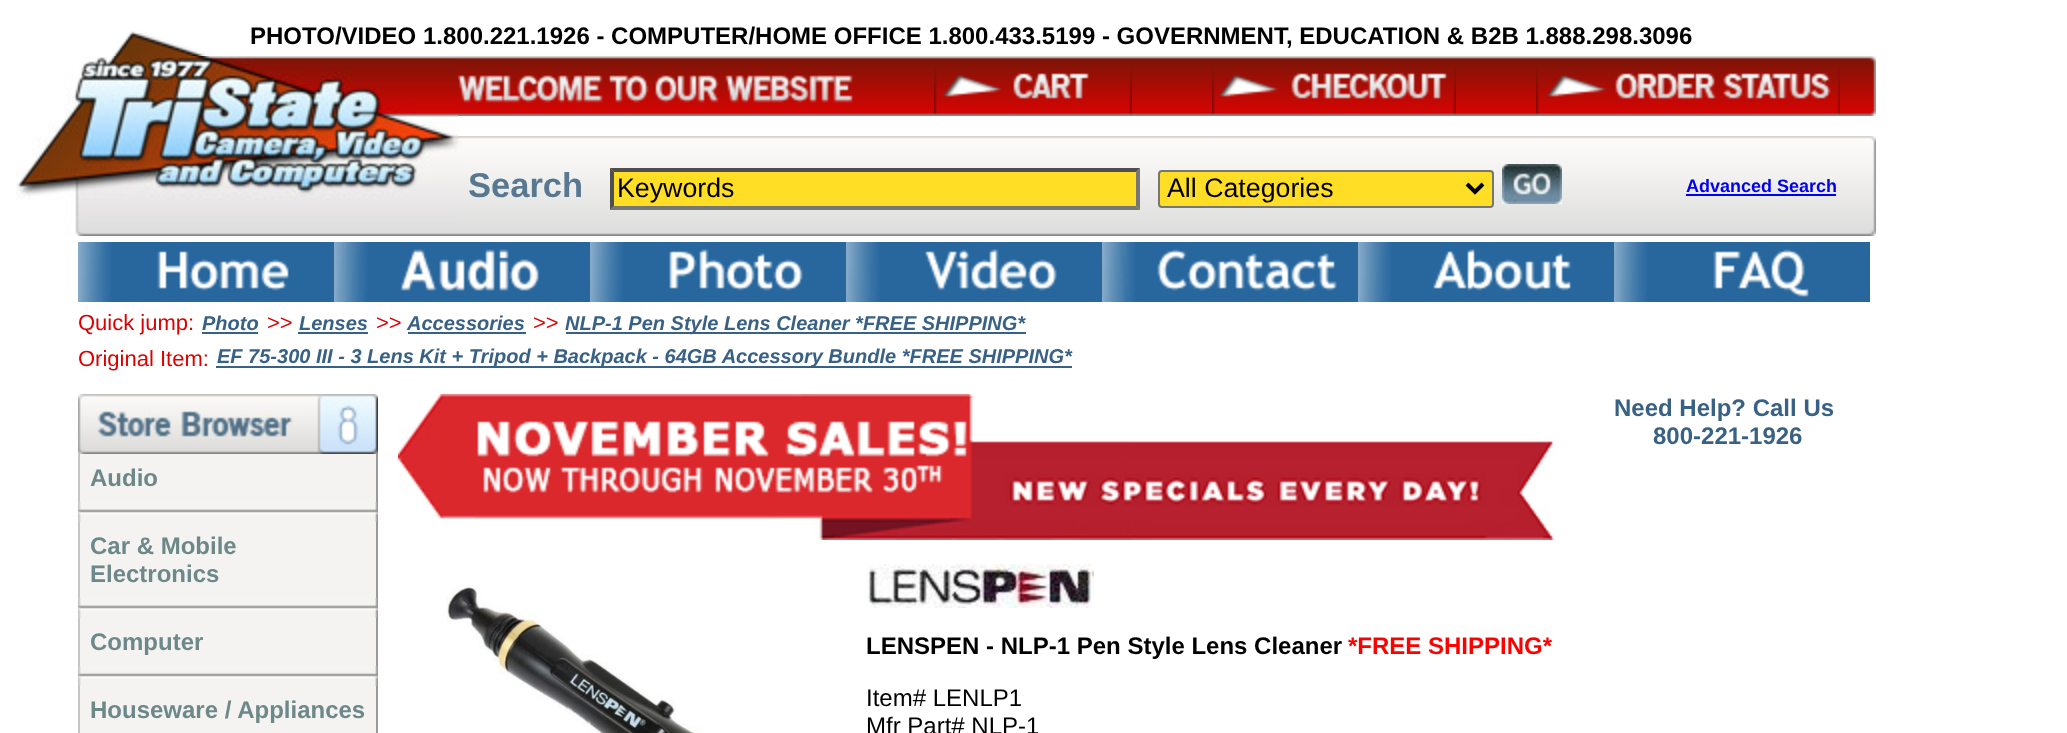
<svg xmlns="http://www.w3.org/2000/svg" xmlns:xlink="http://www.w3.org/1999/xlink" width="2067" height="733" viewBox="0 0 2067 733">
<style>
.cls-1{font:bold 24px Liberation Sans;fill:#000000}
.cls-2{font:bold 34.5px Liberation Sans;fill:#587891}
.cls-3{font:26.75px Liberation Sans;fill:#000000}
.cls-4{font:bold 18px Liberation Sans;fill:#0000ee}
.cls-5{font:22px Liberation Sans;fill:#dd0000}
.cls-6{font:italic bold 20px Liberation Sans;fill:#386185}
.cls-7{font:bold 24px Liberation Sans;fill:#386185}
.cls-8{font:bold 24px Liberation Sans;fill:#6d8888}
.cls-9{font:bold 24px Liberation Sans;fill:#ff0000}
.cls-10{font:24px Liberation Sans;fill:#000000}
</style>
<rect width="100%" height="100%" fill="#ffffff"/>
<image xlink:href="image0.png" x="113" y="31" width="98" height="25"/>
<image xlink:href="image1.png" x="16" y="56" width="442" height="180"/>
<image xlink:href="image2.png" x="458" y="56" width="1418" height="60"/>
<image xlink:href="image3.png" x="934" y="68" width="198" height="47"/>
<image xlink:href="image4.png" x="1212" y="68" width="244" height="47"/>
<image xlink:href="image5.png" x="1536" y="68" width="304" height="47"/>
<image xlink:href="image6.png" x="458" y="136" width="1418" height="100"/>
<rect fill="#ffde25" x="610" y="168" width="530" height="42"/>
<path fill="#4f4f4f" d="M610 168H1140L1136 172H614Z"/>
<path fill="#767676" d="M1140 168V210L1136 206V172Z"/>
<path fill="#767676" d="M1140 210H610L614 206H1136Z"/>
<path fill="#4f4f4f" d="M610 210V168L614 172V206Z"/>
<rect fill="#ffde25" stroke="#767676" stroke-width="2" x="1159" y="171" width="334" height="36" rx="3"/>
<path fill="none" stroke="#000000" stroke-width="4" d="M1467 184L1475 192L1483 184"/>
<image xlink:href="image7.png" x="1502" y="164" width="60" height="40"/>
<rect fill="#0000ee" x="1686" y="194" width="150" height="2"/>
<image xlink:href="image8.png" x="78" y="242" width="256" height="60"/>
<image xlink:href="image9.png" x="334" y="242" width="256" height="60"/>
<image xlink:href="image10.png" x="590" y="242" width="256" height="60"/>
<image xlink:href="image11.png" x="846" y="242" width="256" height="60"/>
<image xlink:href="image12.png" x="1102" y="242" width="256" height="60"/>
<image xlink:href="image13.png" x="1358" y="242" width="256" height="60"/>
<image xlink:href="image14.png" x="1614" y="242" width="256" height="60"/>
<rect fill="#386185" x="202" y="332" width="56" height="2"/>
<rect fill="#386185" x="298" y="332" width="70" height="2"/>
<rect fill="#386185" x="408" y="332" width="118" height="2"/>
<rect fill="#386185" x="566" y="332" width="460" height="2"/>
<rect fill="#386185" x="216" y="366" width="856" height="2"/>
<rect fill="#f4f3f2" x="80" y="454" width="296" height="279"/>
<image xlink:href="image15.png" x="78" y="394" width="300" height="60"/>
<rect fill="#c6c6c6" x="78" y="454" width="2" height="48"/>
<rect fill="#9a9a9a" x="376" y="454" width="2" height="48"/>
<image xlink:href="image16.png" x="78" y="502" width="300" height="20"/>
<rect fill="#c6c6c6" x="78" y="522" width="2" height="76"/>
<rect fill="#9a9a9a" x="376" y="522" width="2" height="76"/>
<image xlink:href="image16.png" x="78" y="598" width="300" height="20"/>
<rect fill="#c6c6c6" x="78" y="618" width="2" height="48"/>
<rect fill="#9a9a9a" x="376" y="618" width="2" height="48"/>
<image xlink:href="image16.png" x="78" y="666" width="300" height="20"/>
<rect fill="#c6c6c6" x="78" y="686" width="2" height="47"/>
<rect fill="#9a9a9a" x="376" y="686" width="2" height="47"/>
<image xlink:href="image17.png" x="398" y="394" width="1157" height="146"/>
<image xlink:href="image18.png" x="446" y="585" width="257" height="148"/>
<image xlink:href="image19.png" x="866" y="564" width="228" height="44"/>
<text class="cls-1" x="250" y="44">PHOTO/VIDEO 1.800.221.1926 - COMPUTER/HOME OFFICE 1.800.433.5199 - GOVERNMENT, EDUCATION &amp; B2B 1.888.298.3096</text>
<text class="cls-2" x="468" y="197">Search</text>
<text class="cls-3" x="617" y="197">Keywords</text>
<text class="cls-3" x="1167" y="197">All Categories</text>
<text class="cls-4" x="1686" y="192">Advanced Search</text>
<text class="cls-5" x="78" y="330">Quick jump:</text>
<text class="cls-6" x="202" y="330">Photo</text>
<text class="cls-5" x="267" y="330">&gt;&gt;</text>
<text class="cls-6" x="299" y="330">Lenses</text>
<text class="cls-5" x="376" y="330">&gt;&gt;</text>
<text class="cls-6" x="407" y="330">Accessories</text>
<text class="cls-5" x="533" y="330">&gt;&gt;</text>
<text class="cls-6" x="565" y="330">NLP-1 Pen Style Lens Cleaner *FREE SHIPPING*</text>
<text class="cls-5" x="78" y="366">Original Item:</text>
<text class="cls-6" x="217" y="363">EF 75-300 III - 3 Lens Kit + Tripod + Backpack - 64GB Accessory Bundle *FREE SHIPPING*</text>
<text class="cls-7" x="1614" y="416">Need Help? Call Us</text>
<text class="cls-7" x="1653" y="444">800-221-1926</text>
<text class="cls-8" x="90" y="486">Audio</text>
<text class="cls-8"><tspan x="90" y="554">Car &amp; Mobile</tspan><tspan x="90" y="582">Electronics</tspan></text>
<text class="cls-8" x="90" y="650">Computer</text>
<text class="cls-8" x="90" y="718">Houseware / Appliances</text>
<text class="cls-1" x="866" y="654">LENSPEN - NLP-1 Pen Style Lens Cleaner</text>
<text class="cls-9" x="1348" y="654">*FREE SHIPPING*</text>
<text class="cls-10"><tspan x="866" y="706">Item# LENLP1</tspan><tspan x="866" y="734">Mfr Part# NLP-1</tspan></text>
</svg>
